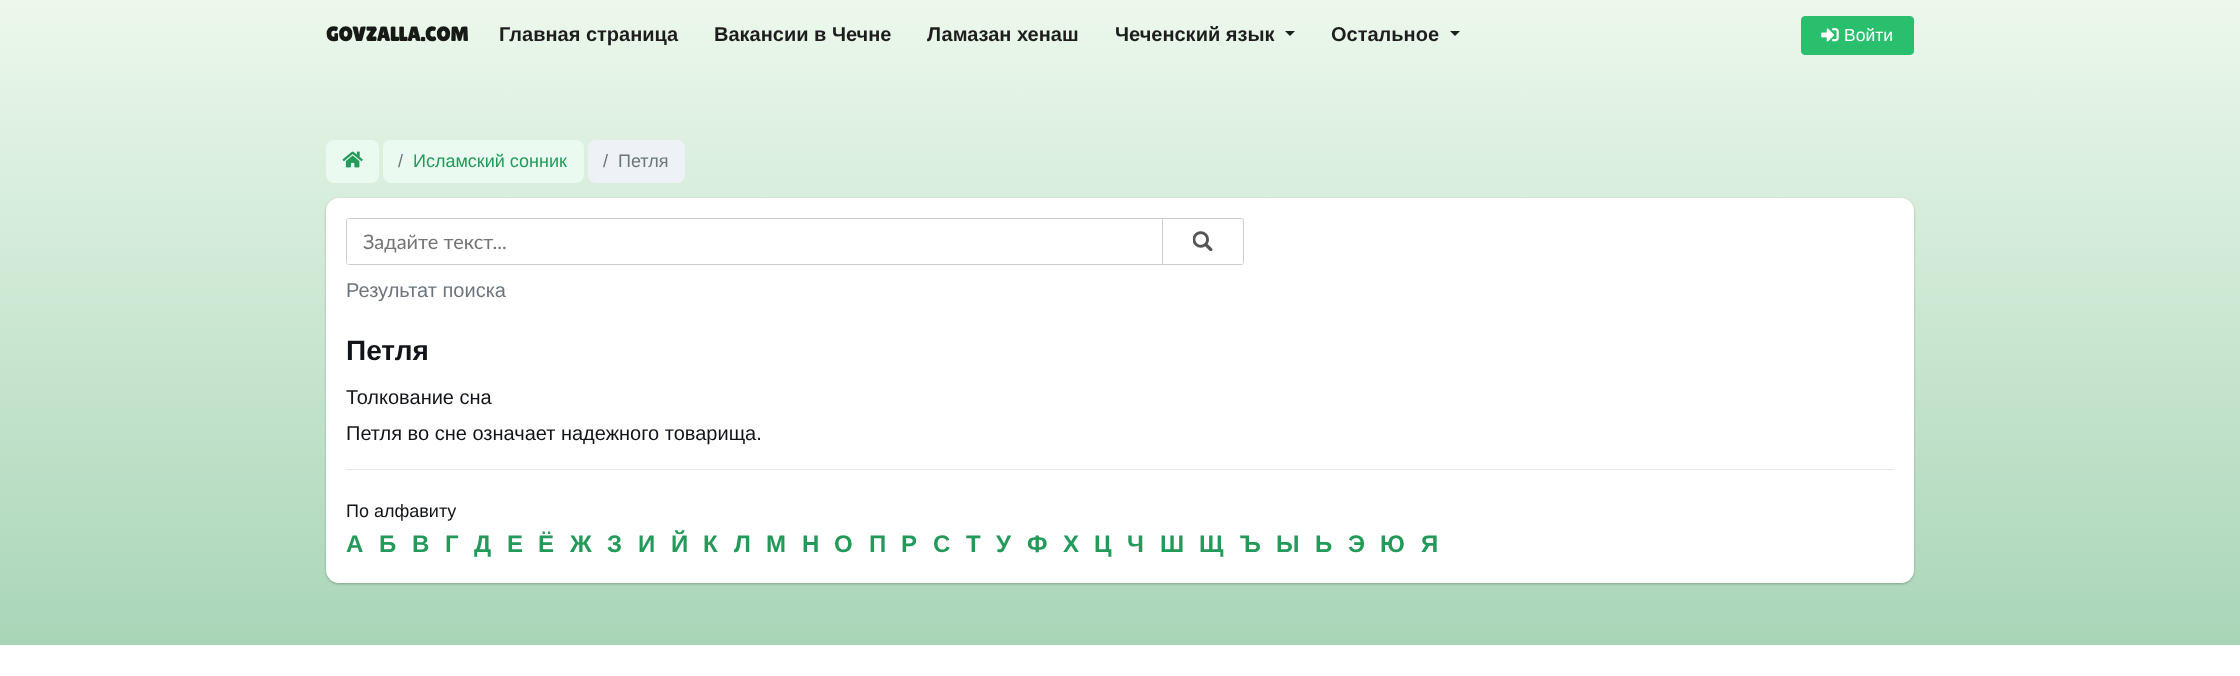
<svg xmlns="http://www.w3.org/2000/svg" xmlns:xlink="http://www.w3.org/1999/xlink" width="2240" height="676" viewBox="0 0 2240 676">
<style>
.cls-1{font:bold 20px Lilita One;fill:#171917}
.cls-2{font:bold 20px Liberation Sans;fill:#1d1d1d}
.cls-3{font:17.5px Liberation Sans;fill:#ffffff}
.cls-4{font:18px Liberation Sans;fill:#6c757d}
.cls-5{font:18px Liberation Sans;fill:#239a59}
.cls-6{font:20px Lato;fill:#757575}
.cls-7{font:20px Liberation Sans;fill:#6c757d}
.cls-8{font:bold 28px Liberation Sans;fill:#111418}
.cls-9{font:20px Liberation Sans;fill:#111418}
.cls-10{font:18px Liberation Sans;fill:#111418}
.cls-11{font:bold 24px Liberation Sans;fill:#239a59}
</style>
<defs>
<linearGradient id="g1" gradientUnits="userSpaceOnUse" x1="1120" y1="0" x2="1120" y2="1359"><stop offset="0" stop-color="#ecf8ec"/><stop offset="1" stop-color="#5faf7d"/></linearGradient>
</defs>
<rect width="100%" height="100%" fill="#ffffff"/>
<rect fill="url(#g1)" x="0" y="0" width="2240" height="645"/>
<path fill="#1d1d1d" d="M1285 31H1295L1290 36Z"/>
<path fill="#1d1d1d" d="M1450 31H1460L1455 36Z"/>
<rect fill="#2abf6d" stroke="#2abf6d" x="1801.5" y="16.5" width="112" height="38" rx="3.5"/>
<image xlink:href="image0.png" x="1821" y="28" width="18" height="14"/>
<rect fill="#eafaf1" x="326" y="140" width="53" height="43" rx="8"/>
<image xlink:href="image1.png" x="342" y="151" width="21" height="17"/>
<rect fill="#eafaf1" x="383" y="140" width="201" height="43" rx="8"/>
<rect fill="#eef2f6" x="588" y="140" width="97" height="43" rx="8"/>
<rect fill="#000000" fill-opacity="0.13" filter="blur(1px)" x="326" y="199" width="1588" height="385" rx="13"/>
<rect fill="#000000" fill-opacity="0.12" filter="blur(1px)" x="326" y="199" width="1588" height="385" rx="13"/>
<rect fill="#ffffff" x="326" y="198" width="1588" height="385" rx="13"/>
<path fill="none" stroke="#cccccc" d="M1161.5 218.5H1241.5C1242.5 218.5 1243.5 219.5 1243.5 220.5V262.5C1243.5 263.5 1242.5 264.5 1241.5 264.5H1161.5Z"/>
<path fill="#ffffff" stroke="#cccccc" d="M348.5 218.5H1162.5V264.5H348.5C347.5 264.5 346.5 263.5 346.5 262.5V220.5C346.5 219.5 347.5 218.5 348.5 218.5Z"/>
<image xlink:href="image2.png" x="1193" y="231" width="20" height="20"/>
<rect fill="#e6e6e6" x="346" y="469" width="1548" height="1"/>
<text class="cls-1" x="326" y="41">GOVZALLA.COM</text>
<text class="cls-2" x="499" y="41">Главная страница</text>
<text class="cls-2" x="714" y="41">Вакансии в Чечне</text>
<text class="cls-2" x="927" y="41">Ламазан хенаш</text>
<text class="cls-2" x="1115" y="41">Чеченский язык</text>
<text class="cls-2" x="1331" y="41">Остальное</text>
<text class="cls-3" x="1844" y="41">Войти</text>
<text class="cls-4" x="398" y="167">/</text>
<text class="cls-5" x="413" y="167">Исламский сонник</text>
<text class="cls-4" x="603" y="167">/</text>
<text class="cls-4" x="618" y="167">Петля</text>
<text class="cls-6" x="363" y="249">Задайте текст...</text>
<text class="cls-7" x="346" y="297">Результат поиска</text>
<text class="cls-8" x="346" y="360">Петля</text>
<text class="cls-9"><tspan x="346" y="404">Толкование сна</tspan><tspan x="346" y="440">Петля во сне означает надежного товарища.</tspan></text>
<text class="cls-10" x="346" y="517">По алфавиту</text>
<text class="cls-11" x="346" y="552">А</text>
<text class="cls-11" x="379" y="552">Б</text>
<text class="cls-11" x="412" y="552">В</text>
<text class="cls-11" x="445" y="552">Г</text>
<text class="cls-11" x="474" y="552">Д</text>
<text class="cls-11" x="507" y="552">Е</text>
<text class="cls-11" x="538" y="552">Ё</text>
<text class="cls-11" x="570" y="552">Ж</text>
<text class="cls-11" x="607" y="552">З</text>
<text class="cls-11" x="638" y="552">И</text>
<text class="cls-11" x="671" y="552">Й</text>
<text class="cls-11" x="703" y="552">К</text>
<text class="cls-11" x="734" y="552">Л</text>
<text class="cls-11" x="766" y="552">М</text>
<text class="cls-11" x="802" y="552">Н</text>
<text class="cls-11" x="834" y="552">О</text>
<text class="cls-11" x="869" y="552">П</text>
<text class="cls-11" x="901" y="552">Р</text>
<text class="cls-11" x="933" y="552">С</text>
<text class="cls-11" x="966" y="552">Т</text>
<text class="cls-11" x="996" y="552">У</text>
<text class="cls-11" x="1027" y="552">Ф</text>
<text class="cls-11" x="1063" y="552">Х</text>
<text class="cls-11" x="1094" y="552">Ц</text>
<text class="cls-11" x="1127" y="552">Ч</text>
<text class="cls-11" x="1160" y="552">Ш</text>
<text class="cls-11" x="1199" y="552">Щ</text>
<text class="cls-11" x="1240" y="552">Ъ</text>
<text class="cls-11" x="1276" y="552">Ы</text>
<text class="cls-11" x="1315" y="552">Ь</text>
<text class="cls-11" x="1348" y="552">Э</text>
<text class="cls-11" x="1380" y="552">Ю</text>
<text class="cls-11" x="1421" y="552">Я</text>
</svg>
